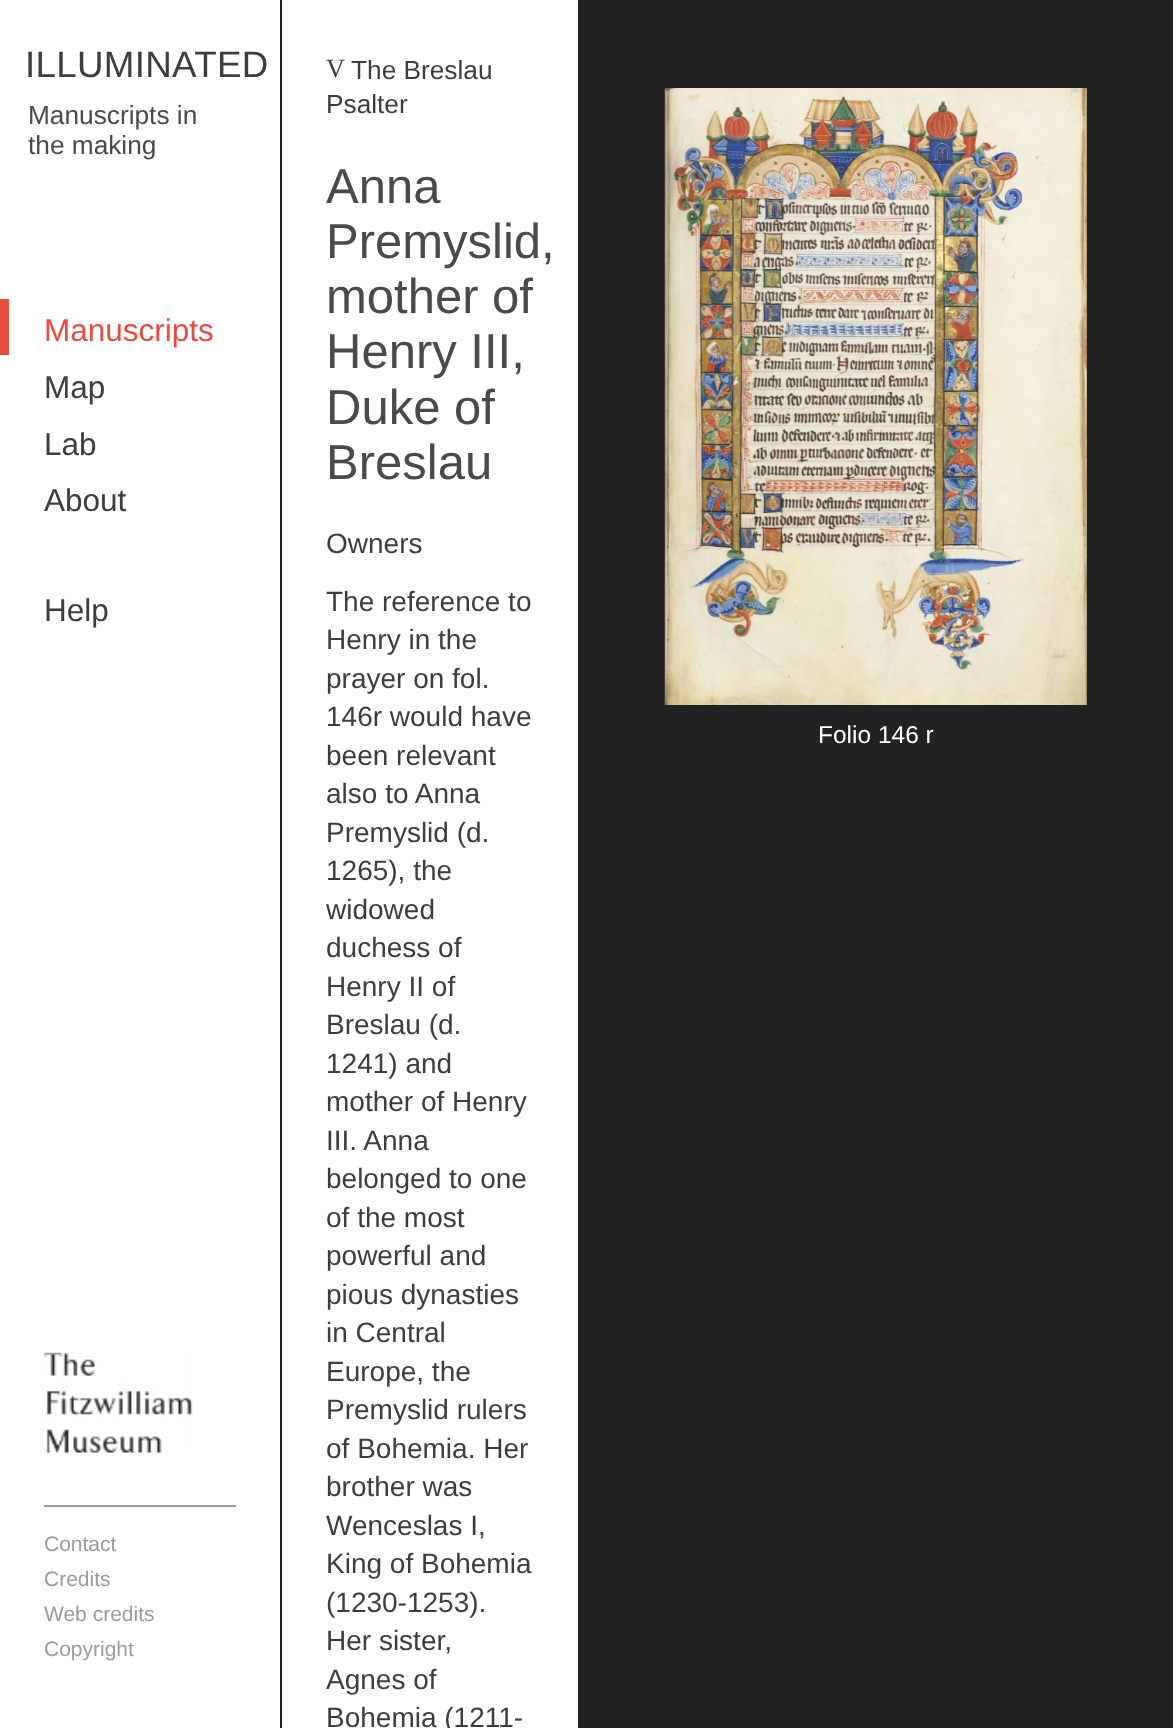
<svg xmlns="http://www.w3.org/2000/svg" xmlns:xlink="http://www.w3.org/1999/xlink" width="1173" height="1728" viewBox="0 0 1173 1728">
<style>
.cls-1{font:36.75px Liberation Sans;letter-spacing:0.3px;fill:#3c3d3c}
.cls-2{font:26.25px Liberation Sans;fill:#4a4a4a}
.cls-3{font:31.5px Liberation Sans;fill:#e74c3c}
.cls-4{font:31.5px Liberation Sans;fill:#3c3d3c}
.cls-5{font:26.25px Liberation Serif;fill:#3c3d3c}
.cls-6{font:26.25px Liberation Sans;fill:#3c3d3c}
.cls-7{font:49px Liberation Sans;fill:#4a4a4a}
.cls-8{font:28px Liberation Sans;fill:#3c3d3c}
.cls-9{font:24.5px Liberation Sans;fill:#ffffff}
.cls-10{font:21px Liberation Sans;fill:#9b9b9b}
</style>
<rect width="100%" height="100%" fill="#222222"/>
<rect fill="#ffffff" x="0" y="0" width="280" height="1728"/>
<rect fill="#e74c3c" x="0" y="299" width="9" height="56"/>
<rect fill="#ffffff" x="282" y="0" width="296" height="1728"/>
<image xlink:href="image0.png" x="664" y="88" width="423" height="617"/>
<rect fill="#9b9b9b" x="44" y="1505" width="192" height="2"/>
<image xlink:href="image1.png" x="43" y="1352" width="150" height="101"/>
<text class="cls-1" x="25" y="77">ILLUMINATED</text>
<text class="cls-2"><tspan x="28" y="124">Manuscripts in</tspan><tspan x="28" y="154">the making</tspan></text>
<text class="cls-3" x="44" y="341">Manuscripts</text>
<text class="cls-4"><tspan x="44" y="398">Map</tspan><tspan x="44" y="455">Lab</tspan><tspan x="44" y="511">About</tspan></text>
<text class="cls-4" x="44" y="621">Help</text>
<text class="cls-5" x="326" y="77">V</text>
<text class="cls-6" x="351" y="79">The Breslau</text>
<text class="cls-6" x="326" y="113">Psalter</text>
<text class="cls-7"><tspan x="326" y="203">Anna</tspan><tspan x="326" y="258">Premyslid,</tspan><tspan x="326" y="313">mother of</tspan><tspan x="326" y="368">Henry III,</tspan><tspan x="326" y="424">Duke of</tspan><tspan x="326" y="479">Breslau</tspan></text>
<text class="cls-8" x="326" y="553">Owners</text>
<text class="cls-8"><tspan x="326" y="611">The reference to</tspan><tspan x="326" y="649">Henry in the</tspan><tspan x="326" y="688">prayer on fol.</tspan><tspan x="326" y="726">146r would have</tspan><tspan x="326" y="765">been relevant</tspan><tspan x="326" y="803">also to Anna</tspan><tspan x="326" y="842">Premyslid (d.</tspan><tspan x="326" y="880">1265), the</tspan><tspan x="326" y="919">widowed</tspan><tspan x="326" y="957">duchess of</tspan><tspan x="326" y="996">Henry II of</tspan><tspan x="326" y="1034">Breslau (d.</tspan><tspan x="326" y="1073">1241) and</tspan><tspan x="326" y="1111">mother of Henry</tspan><tspan x="326" y="1150">III. Anna</tspan><tspan x="326" y="1188">belonged to one</tspan><tspan x="326" y="1227">of the most</tspan><tspan x="326" y="1265">powerful and</tspan><tspan x="326" y="1304">pious dynasties</tspan><tspan x="326" y="1342">in Central</tspan><tspan x="326" y="1381">Europe, the</tspan><tspan x="326" y="1419">Premyslid rulers</tspan><tspan x="326" y="1458">of Bohemia. Her</tspan><tspan x="326" y="1496">brother was</tspan><tspan x="326" y="1535">Wenceslas I,</tspan><tspan x="326" y="1573">King of Bohemia</tspan><tspan x="326" y="1612">(1230-1253).</tspan><tspan x="326" y="1650">Her sister,</tspan><tspan x="326" y="1689">Agnes of</tspan><tspan x="326" y="1727">Bohemia (1211-</tspan></text>
<text class="cls-9" x="818" y="743">Folio 146 r</text>
<text class="cls-10"><tspan x="44" y="1551">Contact</tspan><tspan x="44" y="1586">Credits</tspan><tspan x="44" y="1621">Web credits</tspan><tspan x="44" y="1656">Copyright</tspan></text>
</svg>
